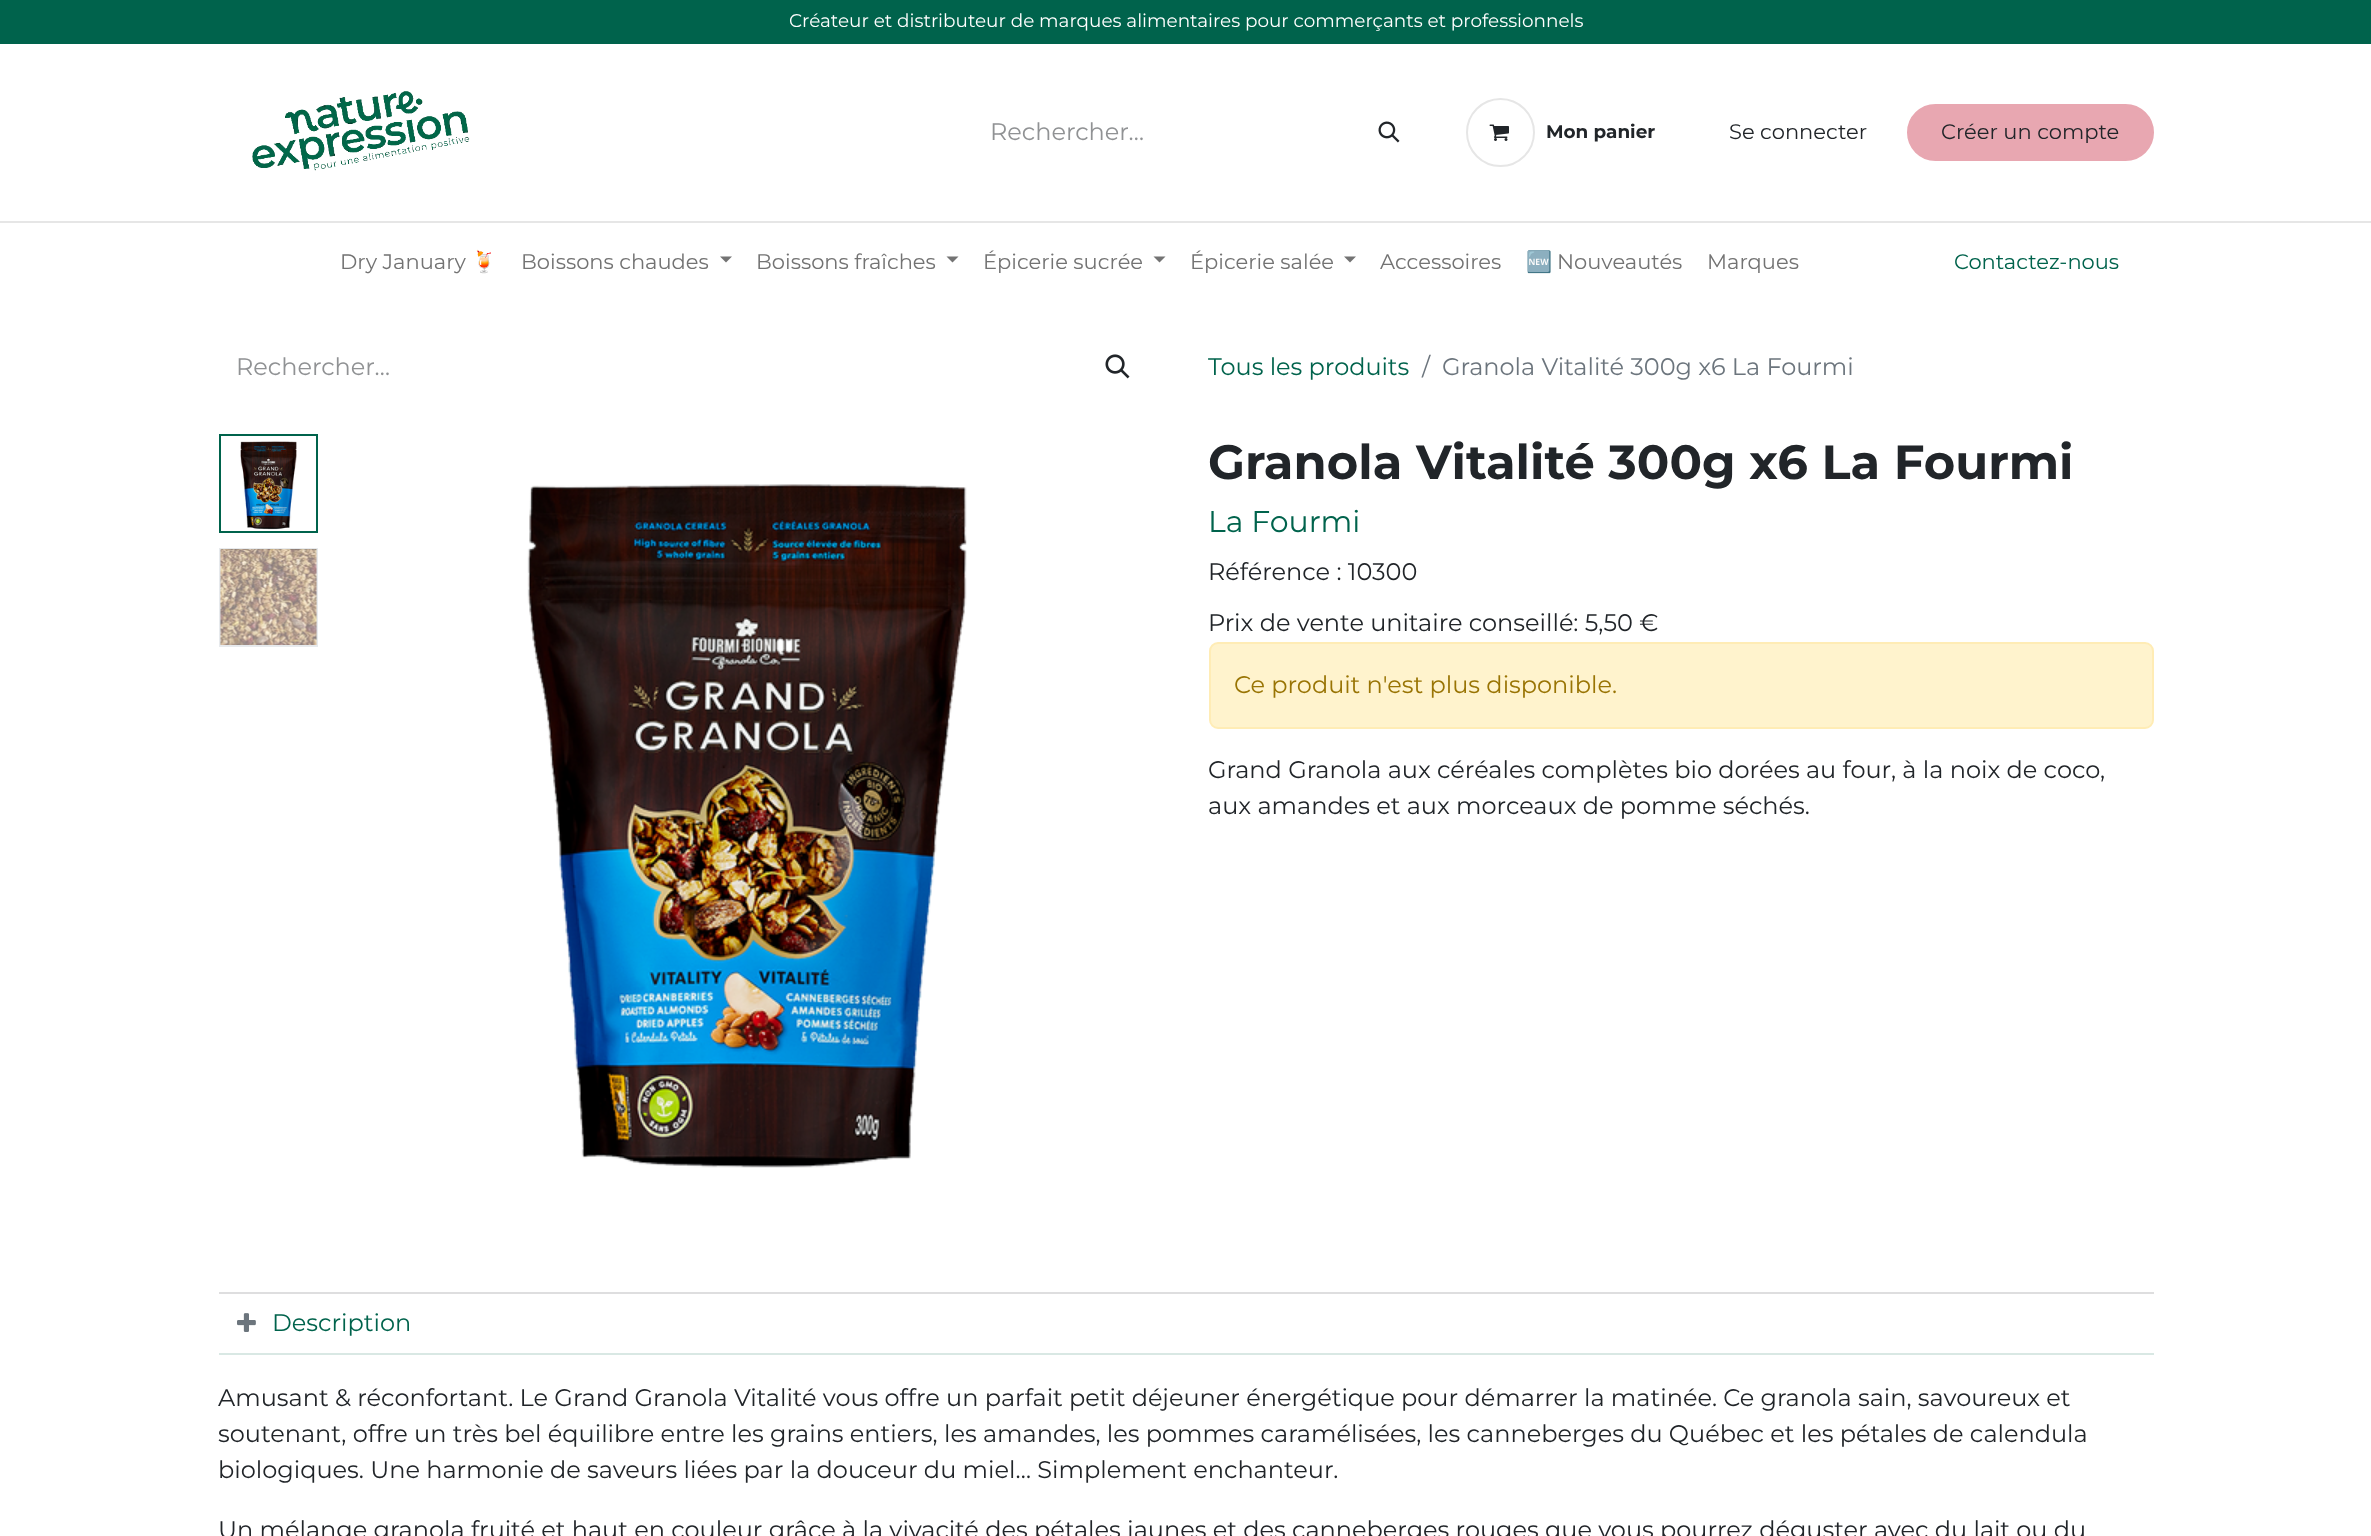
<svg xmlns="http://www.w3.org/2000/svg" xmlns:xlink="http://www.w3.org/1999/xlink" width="2371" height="1536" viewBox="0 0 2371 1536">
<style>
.cls-1{font:18.4px Montserrat;fill:#ffffff}
.cls-2{font:24px Montserrat;fill:#909294}
.cls-3{font:bold 18.4px Montserrat;fill:#212529}
.cls-4{font:21px Montserrat;fill:#212529}
.cls-5{font:21px Montserrat;fill:#737373}
.cls-6{font:21px Noto Color Emoji;fill:#737373}
.cls-7{font:21px Montserrat;fill:#00634c}
.cls-8{font:24px Montserrat;fill:#00634c}
.cls-9{font:24px Montserrat;fill:#6c757d}
.cls-10{font:bold 48px Montserrat;fill:#212529}
.cls-11{font:30px Montserrat;fill:#00634c}
.cls-12{font:24px Montserrat;fill:#212529}
.cls-13{font:24px Montserrat;fill:#997404}
</style>
<rect width="100%" height="100%" fill="#ffffff"/>
<rect fill="#00634c" x="0" y="0" width="2371" height="44"/>
<image xlink:href="image0.png" x="252" y="91" width="218" height="80"/>
<image xlink:href="image1.png" x="1378" y="121" width="22" height="22"/>
<circle fill="none" stroke="#e6e6e6" stroke-width="2" cx="1500.5" cy="132.5" r="33.5"/>
<image xlink:href="image2.png" x="1489" y="124" width="20" height="17"/>
<rect fill="#e8a7b1" stroke="#e8a7b1" stroke-width="2" x="1908" y="105" width="245" height="55" rx="27.5"/>
<rect fill="#e6e6e6" x="0" y="221" width="2371" height="2"/>
<path fill="#737373" d="M720 256.5H732L726 262.5Z"/>
<path fill="#737373" d="M946.5 256.5H958.5L952.5 262.5Z"/>
<path fill="#737373" d="M1153.5 256.5H1165.5L1159.5 262.5Z"/>
<path fill="#737373" d="M1344 256.5H1356L1350 262.5Z"/>
<image xlink:href="image3.png" x="1105" y="354" width="25" height="25"/>
<rect fill="none" stroke="#00634c" stroke-width="2" x="220" y="435" width="97" height="97"/>
<image xlink:href="image4.png" x="240" y="441" width="57" height="89"/>
<rect fill="none" stroke="#e7eaed" stroke-width="2" x="220" y="549" width="97" height="97"/>
<image xlink:href="image5.png" x="220" y="549" width="97" height="96"/>
<image xlink:href="image6.png" x="527" y="484" width="440" height="684"/>
<rect fill="#fff3cd" stroke="#ffecb5" stroke-width="2" x="1210" y="643" width="943" height="85" rx="8"/>
<rect fill="#dededf" x="219" y="1292" width="1935" height="2"/>
<rect fill="#d9e8e4" x="219" y="1353" width="1935" height="2"/>
<image xlink:href="image7.png" x="237" y="1313" width="19" height="19"/>
<text class="cls-1" x="789" y="27">Créateur et distributeur de marques alimentaires pour commerçants et professionnels</text>
<text class="cls-2" x="990" y="140">Rechercher…</text>
<text class="cls-3" x="1546" y="138">Mon panier</text>
<text class="cls-4" x="1729" y="139">Se connecter</text>
<text class="cls-4" x="1941" y="139">Créer un compte</text>
<text class="cls-5" x="340" y="269">Dry January</text>
<text class="cls-6" x="471" y="269">🍹</text>
<text class="cls-5" x="521" y="269">Boissons chaudes</text>
<text class="cls-5" x="756" y="269">Boissons fraîches</text>
<text class="cls-5" x="983" y="269">Épicerie sucrée</text>
<text class="cls-5" x="1190" y="269">Épicerie salée</text>
<text class="cls-5" x="1380" y="269">Accessoires</text>
<text class="cls-6" x="1526" y="269">🆕</text>
<text class="cls-5" x="1557" y="269">Nouveautés</text>
<text class="cls-5" x="1707" y="269">Marques</text>
<text class="cls-7" x="1954" y="269">Contactez-nous</text>
<text class="cls-2" x="236" y="375">Rechercher…</text>
<text class="cls-8" x="1208" y="375">Tous les produits</text>
<text class="cls-9" x="1422" y="375">/</text>
<text class="cls-9" x="1442" y="375">Granola Vitalité 300g x6 La Fourmi</text>
<text class="cls-10" x="1208" y="479">Granola Vitalité 300g x6 La Fourmi</text>
<text class="cls-11" x="1208" y="532">La Fourmi</text>
<text class="cls-12" x="1208" y="580">Référence : 10300</text>
<text class="cls-12" x="1208" y="631">Prix de vente unitaire conseillé: 5,50 €</text>
<text class="cls-13" x="1234" y="693">Ce produit n'est plus disponible.</text>
<text class="cls-12"><tspan x="1208" y="778">Grand Granola aux céréales complètes bio dorées au four, à la noix de coco,</tspan><tspan x="1208" y="814">aux amandes et aux morceaux de pomme séchés.</tspan></text>
<text class="cls-8" x="272" y="1331">Description</text>
<text class="cls-12"><tspan x="218" y="1406">Amusant &amp; réconfortant. Le Grand Granola Vitalité vous offre un parfait petit déjeuner énergétique pour démarrer la matinée. Ce granola sain, savoureux et</tspan><tspan x="218" y="1442">soutenant, offre un très bel équilibre entre les grains entiers, les amandes, les pommes caramélisées, les canneberges du Québec et les pétales de calendula</tspan><tspan x="218" y="1478">biologiques. Une harmonie de saveurs liées par la douceur du miel… Simplement enchanteur.</tspan></text>
<text class="cls-12" x="218" y="1538">Un mélange granola fruité et haut en couleur grâce à la vivacité des pétales jaunes et des canneberges rouges que vous pourrez déguster avec du lait ou du</text>
</svg>
